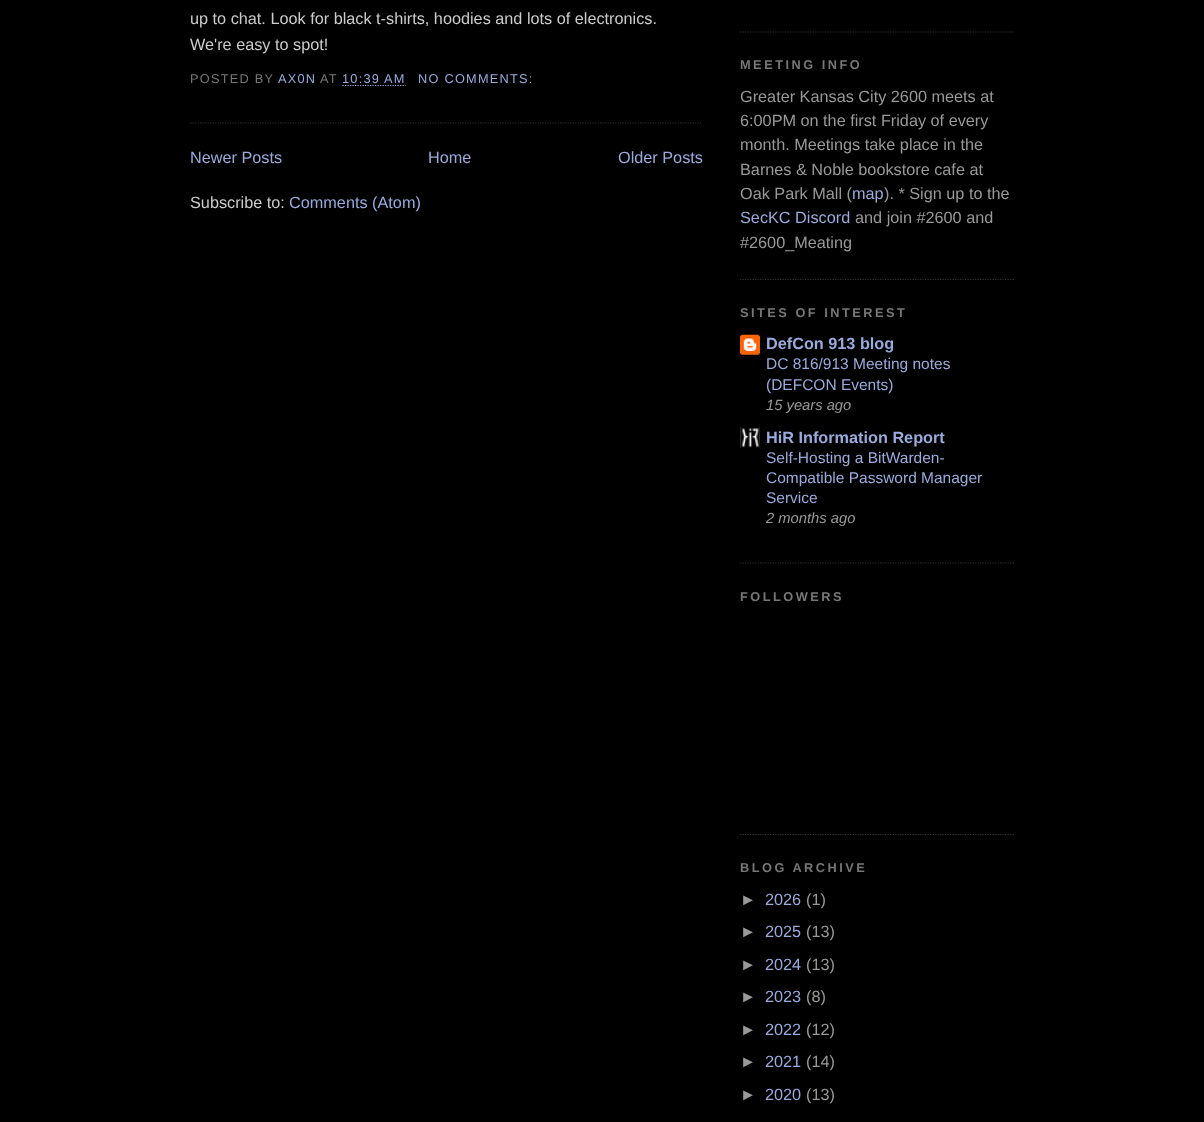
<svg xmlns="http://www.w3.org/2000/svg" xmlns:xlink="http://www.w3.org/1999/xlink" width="1204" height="1122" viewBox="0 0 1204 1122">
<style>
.cls-1{font:16.25px Liberation Sans;fill:#cccccc}
.cls-2{font:12.75px Liberation Sans;letter-spacing:1.25px;fill:#777777}
.cls-3{font:12.75px Liberation Sans;letter-spacing:1.25px;fill:#99aadd}
.cls-4{font:16.25px Liberation Sans;fill:#99aadd}
.cls-5{font:bold 12.75px Liberation Sans;letter-spacing:2.5px;fill:#777777}
.cls-6{font:16.25px Liberation Sans;fill:#999999}
.cls-7{font:bold 16.25px Liberation Sans;fill:#99aadd}
.cls-8{font:15.5px Liberation Sans;fill:#99aadd}
.cls-9{font:italic 14.75px Liberation Sans;fill:#999999}
</style>
<rect width="100%" height="100%" fill="#000000"/>
<path fill="none" stroke="#333333" stroke-width="1.2" stroke-dasharray="1.25 1.25" d="M190 123H702.5"/>
<path fill="none" stroke="#99aadd" stroke-width="1.2" stroke-dasharray="1.25 1.25" d="M342.5 85.5H405.5"/>
<path fill="none" stroke="#333333" stroke-width="1.2" stroke-dasharray="1.25 1.25" d="M740 32H1015"/>
<path fill="none" stroke="#333333" stroke-width="1.2" stroke-dasharray="1.25 1.25" d="M740 279.5H1015"/>
<path fill="none" stroke="#333333" stroke-width="1.2" stroke-dasharray="1.25 1.25" d="M740 563H1015"/>
<image xlink:href="image0.png" x="740" y="334" width="20" height="21"/>
<image xlink:href="image1.png" x="740" y="427" width="20" height="21"/>
<path fill="none" stroke="#333333" stroke-width="1.2" stroke-dasharray="1.25 1.25" d="M740 834.5H1015"/>
<text class="cls-1"><tspan x="190" y="24">up to chat. Look for black t-shirts, hoodies and lots of electronics.</tspan><tspan x="190" y="50">We're easy to spot!</tspan></text>
<text class="cls-2" x="190" y="83">POSTED BY</text>
<text class="cls-3" x="278" y="83">AX0N</text>
<text class="cls-2" x="320" y="83">AT</text>
<text class="cls-3" x="342" y="83">10:39 AM</text>
<text class="cls-3" x="418" y="83">NO COMMENTS:</text>
<text class="cls-4" x="190" y="163">Newer Posts</text>
<text class="cls-4" x="428" y="163">Home</text>
<text class="cls-4" x="618" y="163">Older Posts</text>
<text class="cls-1" x="190" y="208">Subscribe to:</text>
<text class="cls-4" x="289" y="208">Comments (Atom)</text>
<text class="cls-5" x="740" y="69">MEETING INFO</text>
<text class="cls-6"><tspan x="740" y="102">Greater Kansas City 2600 meets at</tspan><tspan x="740" y="126">6:00PM on the first Friday of every</tspan><tspan x="740" y="150">month. Meetings take place in the</tspan><tspan x="740" y="175">Barnes &amp; Noble bookstore cafe at</tspan><tspan x="740" y="199">Oak Park Mall (</tspan></text>
<text class="cls-4" x="852" y="199">map</text>
<text class="cls-6" x="884" y="199">). * Sign up to the</text>
<text class="cls-4" x="740" y="223">SecKC Discord</text>
<text class="cls-6" x="855" y="223">and join #2600 and</text>
<text class="cls-6" x="740" y="248">#2600_Meating</text>
<text class="cls-5" x="740" y="317">SITES OF INTEREST</text>
<text class="cls-7" x="766" y="349">DefCon 913 blog</text>
<text class="cls-8"><tspan x="766" y="369">DC 816/913 Meeting notes</tspan><tspan x="766" y="390">(DEFCON Events)</tspan></text>
<text class="cls-9" x="766" y="410">15 years ago</text>
<text class="cls-7" x="766" y="443">HiR Information Report</text>
<text class="cls-8"><tspan x="766" y="463">Self-Hosting a BitWarden-</tspan><tspan x="766" y="483">Compatible Password Manager</tspan><tspan x="766" y="503">Service</tspan></text>
<text class="cls-9" x="766" y="523">2 months ago</text>
<text class="cls-5" x="740" y="601">FOLLOWERS</text>
<text class="cls-5" x="740" y="872">BLOG ARCHIVE</text>
<text class="cls-6" x="740" y="905">►</text>
<text class="cls-4" x="765" y="905">2026</text>
<text class="cls-6" x="806" y="905">(1)</text>
<text class="cls-6" x="740" y="937">►</text>
<text class="cls-4" x="765" y="937">2025</text>
<text class="cls-6" x="806" y="937">(13)</text>
<text class="cls-6" x="740" y="970">►</text>
<text class="cls-4" x="765" y="970">2024</text>
<text class="cls-6" x="806" y="970">(13)</text>
<text class="cls-6" x="740" y="1002">►</text>
<text class="cls-4" x="765" y="1002">2023</text>
<text class="cls-6" x="806" y="1002">(8)</text>
<text class="cls-6" x="740" y="1035">►</text>
<text class="cls-4" x="765" y="1035">2022</text>
<text class="cls-6" x="806" y="1035">(12)</text>
<text class="cls-6" x="740" y="1067">►</text>
<text class="cls-4" x="765" y="1067">2021</text>
<text class="cls-6" x="806" y="1067">(14)</text>
<text class="cls-6" x="740" y="1100">►</text>
<text class="cls-4" x="765" y="1100">2020</text>
<text class="cls-6" x="806" y="1100">(13)</text>
</svg>
